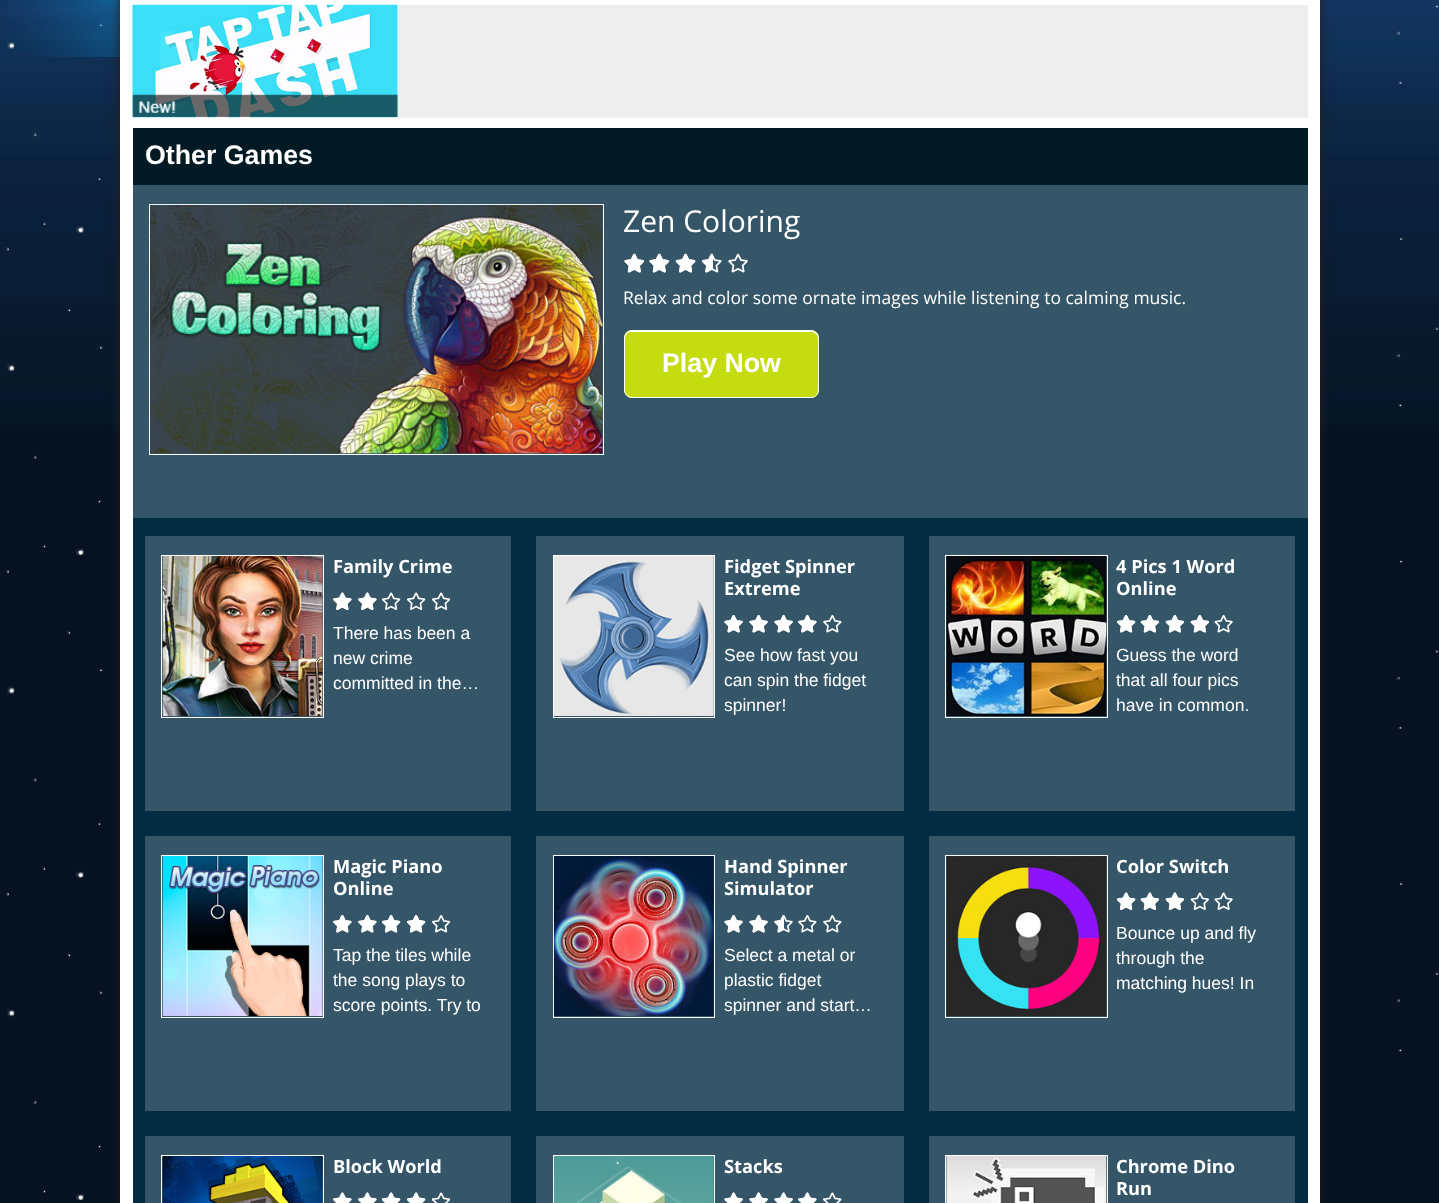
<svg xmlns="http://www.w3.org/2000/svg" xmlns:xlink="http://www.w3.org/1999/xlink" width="1439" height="1203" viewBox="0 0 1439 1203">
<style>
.cls-1{font:bold 26.75px Liberation Sans;fill:#ffffff}
.cls-2{font:30px Open Sans;fill:#ffffff}
.cls-3{font:17.5px Open Sans;fill:#ffffff}
.cls-4{font:bold 18.25px Open Sans;fill:#ffffff}
.cls-5{font:17.5px Liberation Sans;fill:#ffffff}
</style>
<rect width="100%" height="100%" fill="#061222"/>
<image xlink:href="image0.png" x="0" y="0" width="1439" height="425"/>
<image xlink:href="image1.png" x="6" y="4" width="1433" height="1197"/>
<image xlink:href="image2.png" x="6" y="0" width="114" height="57"/>
<rect fill="#231f20" filter="blur(6px)" x="120" y="-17" width="1200" height="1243" rx="5"/>
<rect fill="#ffffff" x="120" y="0" width="1200" height="1203"/>
<image xlink:href="image3.png" x="132" y="4" width="266" height="114"/>
<image xlink:href="image4.png" x="132" y="94" width="266" height="24"/>
<rect fill="#eeeeee" x="398" y="5" width="910" height="113"/>
<rect fill="#032c42" x="133" y="518" width="1175" height="685"/>
<rect fill="#031924" x="133" y="128" width="1175" height="57"/>
<rect fill="#355668" x="133" y="185" width="1175" height="333"/>
<rect fill="none" stroke="#ffffff" x="149.5" y="204.5" width="454" height="250"/>
<image xlink:href="image5.png" x="150" y="204" width="453" height="250"/>
<image xlink:href="image6.png" x="624" y="253" width="21" height="20"/>
<image xlink:href="image6.png" x="649" y="253" width="21" height="20"/>
<image xlink:href="image7.png" x="675" y="253" width="21" height="20"/>
<image xlink:href="image8.png" x="702" y="253" width="20" height="20"/>
<image xlink:href="image9.png" x="728" y="253" width="20" height="20"/>
<image xlink:href="image10.png" x="624" y="253" width="21" height="20"/>
<image xlink:href="image10.png" x="649" y="253" width="21" height="20"/>
<image xlink:href="image11.png" x="675" y="253" width="21" height="20"/>
<image xlink:href="image12.png" x="702" y="253" width="11" height="20"/>
<rect fill="#c5dc10" x="624" y="330" width="195" height="68" rx="8"/>
<path fill="#ffffff" d="M631 332H811C815 332 818 335 818 339V337C818 334 815 331 812 331H631C628 331 625 334 625 337V339C625 335 628 332 631 332Z"/>
<rect fill="none" stroke="#ffffff" x="624.5" y="330.5" width="194" height="67" rx="7.5"/>
<rect fill="#355668" x="145" y="536" width="366" height="275"/>
<rect fill="none" stroke="#ffffff" x="161.5" y="555.5" width="162" height="162"/>
<image xlink:href="image13.png" x="162" y="556" width="161" height="160"/>
<image xlink:href="image14.png" x="333" y="592" width="19" height="18"/>
<image xlink:href="image14.png" x="358" y="592" width="19" height="18"/>
<image xlink:href="image15.png" x="382" y="592" width="19" height="18"/>
<image xlink:href="image15.png" x="407" y="592" width="19" height="18"/>
<image xlink:href="image16.png" x="432" y="592" width="18" height="18"/>
<image xlink:href="image17.png" x="333" y="592" width="19" height="18"/>
<image xlink:href="image17.png" x="358" y="592" width="19" height="18"/>
<rect fill="#355668" x="536" y="536" width="368" height="275"/>
<rect fill="none" stroke="#ffffff" x="553.5" y="555.5" width="161" height="162"/>
<image xlink:href="image18.png" x="554" y="556" width="160" height="160"/>
<image xlink:href="image19.png" x="724" y="615" width="19" height="18"/>
<image xlink:href="image19.png" x="749" y="615" width="19" height="18"/>
<image xlink:href="image19.png" x="774" y="615" width="19" height="18"/>
<image xlink:href="image20.png" x="798" y="615" width="19" height="18"/>
<image xlink:href="image20.png" x="823" y="615" width="19" height="18"/>
<image xlink:href="image21.png" x="724" y="615" width="19" height="18"/>
<image xlink:href="image21.png" x="749" y="615" width="19" height="18"/>
<image xlink:href="image21.png" x="774" y="615" width="19" height="18"/>
<image xlink:href="image22.png" x="798" y="615" width="19" height="18"/>
<rect fill="#355668" x="929" y="536" width="366" height="275"/>
<rect fill="none" stroke="#ffffff" x="945.5" y="555.5" width="162" height="162"/>
<image xlink:href="image23.png" x="946" y="556" width="161" height="160"/>
<image xlink:href="image24.png" x="1117" y="615" width="19" height="18"/>
<image xlink:href="image25.png" x="1140" y="615" width="19" height="18"/>
<image xlink:href="image25.png" x="1165" y="615" width="19" height="18"/>
<image xlink:href="image25.png" x="1190" y="615" width="19" height="18"/>
<image xlink:href="image19.png" x="1214" y="615" width="19" height="18"/>
<image xlink:href="image26.png" x="1117" y="615" width="19" height="18"/>
<image xlink:href="image27.png" x="1140" y="615" width="19" height="18"/>
<image xlink:href="image27.png" x="1165" y="615" width="19" height="18"/>
<image xlink:href="image27.png" x="1190" y="615" width="19" height="18"/>
<rect fill="#355668" x="145" y="836" width="366" height="275"/>
<rect fill="none" stroke="#ffffff" x="161.5" y="855.5" width="162" height="162"/>
<image xlink:href="image28.png" x="162" y="856" width="161" height="160"/>
<image xlink:href="image20.png" x="333" y="915" width="19" height="18"/>
<image xlink:href="image20.png" x="358" y="915" width="19" height="18"/>
<image xlink:href="image24.png" x="382" y="915" width="19" height="18"/>
<image xlink:href="image24.png" x="407" y="915" width="19" height="18"/>
<image xlink:href="image29.png" x="432" y="915" width="18" height="18"/>
<image xlink:href="image22.png" x="333" y="915" width="19" height="18"/>
<image xlink:href="image22.png" x="358" y="915" width="19" height="18"/>
<image xlink:href="image26.png" x="382" y="915" width="19" height="18"/>
<image xlink:href="image26.png" x="407" y="915" width="19" height="18"/>
<rect fill="#355668" x="536" y="836" width="368" height="275"/>
<rect fill="none" stroke="#ffffff" x="553.5" y="855.5" width="161" height="162"/>
<image xlink:href="image30.png" x="553" y="856" width="161" height="160"/>
<image xlink:href="image19.png" x="724" y="915" width="19" height="18"/>
<image xlink:href="image19.png" x="749" y="915" width="19" height="18"/>
<image xlink:href="image19.png" x="774" y="915" width="19" height="18"/>
<image xlink:href="image20.png" x="798" y="915" width="19" height="18"/>
<image xlink:href="image20.png" x="823" y="915" width="19" height="18"/>
<image xlink:href="image21.png" x="724" y="915" width="19" height="18"/>
<image xlink:href="image21.png" x="749" y="915" width="19" height="18"/>
<image xlink:href="image31.png" x="774" y="915" width="10" height="18"/>
<rect fill="#355668" x="929" y="836" width="366" height="275"/>
<rect fill="none" stroke="#ffffff" x="945.5" y="855.5" width="162" height="162"/>
<image xlink:href="image32.png" x="946" y="856" width="161" height="160"/>
<image xlink:href="image15.png" x="1117" y="892" width="19" height="18"/>
<image xlink:href="image33.png" x="1140" y="892" width="19" height="18"/>
<image xlink:href="image33.png" x="1165" y="892" width="19" height="18"/>
<image xlink:href="image33.png" x="1190" y="892" width="19" height="18"/>
<image xlink:href="image34.png" x="1214" y="892" width="19" height="18"/>
<image xlink:href="image35.png" x="1117" y="892" width="19" height="18"/>
<image xlink:href="image36.png" x="1140" y="892" width="19" height="18"/>
<image xlink:href="image36.png" x="1165" y="892" width="19" height="18"/>
<rect fill="#355668" x="145" y="1136" width="366" height="67"/>
<rect fill="none" stroke="#ffffff" x="161.5" y="1155.5" width="162" height="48"/>
<image xlink:href="image37.png" x="162" y="1156" width="161" height="47"/>
<image xlink:href="image38.png" x="333" y="1192" width="19" height="11"/>
<image xlink:href="image38.png" x="358" y="1192" width="19" height="11"/>
<image xlink:href="image39.png" x="382" y="1192" width="19" height="11"/>
<image xlink:href="image39.png" x="407" y="1192" width="19" height="11"/>
<image xlink:href="image40.png" x="432" y="1192" width="18" height="11"/>
<image xlink:href="image41.png" x="333" y="1192" width="19" height="11"/>
<image xlink:href="image41.png" x="358" y="1192" width="19" height="11"/>
<image xlink:href="image42.png" x="382" y="1192" width="19" height="11"/>
<image xlink:href="image42.png" x="407" y="1192" width="19" height="11"/>
<image xlink:href="image43.png" x="432" y="1198" width="1" height="3"/>
<rect fill="#355668" x="536" y="1136" width="368" height="67"/>
<rect fill="none" stroke="#ffffff" x="553.5" y="1155.5" width="161" height="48"/>
<image xlink:href="image44.png" x="553" y="1156" width="161" height="47"/>
<image xlink:href="image45.png" x="724" y="1192" width="19" height="11"/>
<image xlink:href="image45.png" x="749" y="1192" width="19" height="11"/>
<image xlink:href="image45.png" x="774" y="1192" width="19" height="11"/>
<image xlink:href="image38.png" x="798" y="1192" width="19" height="11"/>
<image xlink:href="image38.png" x="823" y="1192" width="19" height="11"/>
<image xlink:href="image46.png" x="724" y="1192" width="19" height="11"/>
<image xlink:href="image46.png" x="749" y="1192" width="19" height="11"/>
<image xlink:href="image46.png" x="774" y="1192" width="19" height="11"/>
<image xlink:href="image41.png" x="798" y="1192" width="19" height="11"/>
<image xlink:href="image47.png" x="823" y="1198" width="1" height="3"/>
<rect fill="#355668" x="929" y="1136" width="366" height="67"/>
<rect fill="none" stroke="#ffffff" x="945.5" y="1155.5" width="162" height="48"/>
<image xlink:href="image48.png" x="946" y="1156" width="161" height="47"/>
<text class="cls-1" x="145" y="164">Other Games</text>
<text class="cls-2" x="623" y="232">Zen Coloring</text>
<text class="cls-3" x="623" y="304">Relax and color some ornate images while listening to calming music.</text>
<text class="cls-1" x="662" y="372">Play Now</text>
<text class="cls-4" x="333" y="573">Family Crime</text>
<text class="cls-5"><tspan x="333" y="639">There has been a</tspan><tspan x="333" y="664">new crime</tspan><tspan x="333" y="689">committed in the…</tspan></text>
<text class="cls-4"><tspan x="724" y="573">Fidget Spinner</tspan><tspan x="724" y="595">Extreme</tspan></text>
<text class="cls-5"><tspan x="724" y="661">See how fast you</tspan><tspan x="724" y="686">can spin the fidget</tspan><tspan x="724" y="711">spinner!</tspan></text>
<text class="cls-4"><tspan x="1116" y="573">4 Pics 1 Word</tspan><tspan x="1116" y="595">Online</tspan></text>
<text class="cls-5"><tspan x="1116" y="661">Guess the word</tspan><tspan x="1116" y="686">that all four pics</tspan><tspan x="1116" y="711">have in common.</tspan></text>
<text class="cls-4"><tspan x="333" y="873">Magic Piano</tspan><tspan x="333" y="895">Online</tspan></text>
<text class="cls-5"><tspan x="333" y="961">Tap the tiles while</tspan><tspan x="333" y="986">the song plays to</tspan><tspan x="333" y="1011">score points. Try to</tspan></text>
<text class="cls-4"><tspan x="724" y="873">Hand Spinner</tspan><tspan x="724" y="895">Simulator</tspan></text>
<text class="cls-5"><tspan x="724" y="961">Select a metal or</tspan><tspan x="724" y="986">plastic fidget</tspan><tspan x="724" y="1011">spinner and start…</tspan></text>
<text class="cls-4" x="1116" y="873">Color Switch</text>
<text class="cls-5"><tspan x="1116" y="939">Bounce up and fly</tspan><tspan x="1116" y="964">through the</tspan><tspan x="1116" y="989">matching hues! In</tspan></text>
<text class="cls-4" x="333" y="1173">Block World</text>
<text class="cls-4" x="724" y="1173">Stacks</text>
<text class="cls-4"><tspan x="1116" y="1173">Chrome Dino</tspan><tspan x="1116" y="1195">Run</tspan></text>
</svg>
